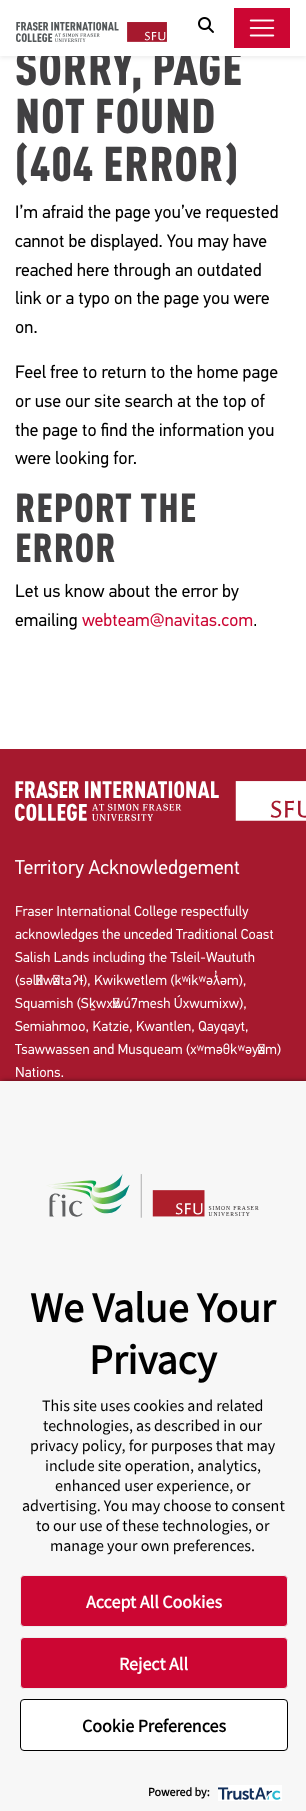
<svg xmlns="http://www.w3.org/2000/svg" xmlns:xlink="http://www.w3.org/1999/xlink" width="306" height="1811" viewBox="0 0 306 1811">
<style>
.cls-1{font:900 48px DIN;letter-spacing:1px;fill:#414042}
.cls-2{font:900 40px DIN;letter-spacing:1px;fill:#414042}
.cls-3{font:14px Liberation Sans;fill:#ffffff}
.cls-4{font:bold 42px Source Sans Pro;fill:#000000}
.cls-5{font:16px Source Sans Pro;fill:#000000}
.cls-6{font:bold 18px Source Sans Pro;fill:#ffffff}
.cls-7{font:bold 18px Source Sans Pro;fill:#000000}
.cls-8{font:bold 12px Source Sans Pro;fill:#000000}
</style>
<rect width="100%" height="100%" fill="#ffffff"/>
<rect fill="#000000" fill-opacity="0.07" filter="blur(2px)" x="0" y="2" width="306" height="56"/>
<image xlink:href="image3.png" x="16" y="204" width="262" height="18"/>
<image xlink:href="image4.png" x="15" y="233" width="252" height="18"/>
<image xlink:href="image5.png" x="16" y="262" width="245" height="18"/>
<image xlink:href="image6.png" x="16" y="290" width="253" height="18"/>
<image xlink:href="image7.png" x="15" y="324" width="22" height="10"/>
<image xlink:href="image8.png" x="16" y="364" width="262" height="18"/>
<image xlink:href="image9.png" x="15" y="393" width="250" height="18"/>
<image xlink:href="image10.png" x="15" y="422" width="259" height="18"/>
<image xlink:href="image11.png" x="15" y="450" width="121" height="18"/>
<image xlink:href="image12.png" x="16" y="583" width="223" height="18"/>
<image xlink:href="image13.png" x="15" y="612" width="62" height="18"/>
<image xlink:href="image14.png" x="82" y="612" width="171" height="15"/>
<path fill="#000000" d="M254.5 626V624H256V626Z"/>
<rect fill="#a6192e" x="0" y="749" width="306" height="332"/>
<image xlink:href="image15.png" x="15" y="781" width="291" height="40"/>
<image xlink:href="image16.png" x="15" y="859" width="225" height="20"/>
<image xlink:href="image17.png" x="16" y="905" width="233" height="14"/>
<image xlink:href="image18.png" x="15" y="928" width="259" height="14"/>
<image xlink:href="image19.png" x="15" y="951" width="240" height="14"/>
<image xlink:href="image20.png" x="15" y="974" width="56" height="13"/>
<image xlink:href="image21.png" x="83" y="974" width="99" height="13"/>
<image xlink:href="image22.png" x="189" y="974" width="10" height="11"/>
<image xlink:href="image23.png" x="220" y="974" width="26" height="13"/>
<image xlink:href="image24.png" x="206" y="977" width="7" height="9"/>
<image xlink:href="image25.png" x="15" y="997" width="74" height="14"/>
<image xlink:href="image26.png" x="96" y="995" width="150" height="15"/>
<image xlink:href="image27.png" x="15" y="1020" width="233" height="14"/>
<image xlink:href="image28.png" x="15" y="1043" width="182" height="14"/>
<image xlink:href="image29.png" x="204" y="1043" width="34" height="12"/>
<image xlink:href="image30.png" x="245" y="1043" width="36" height="14"/>
<image xlink:href="image31.png" x="16" y="1067" width="48" height="11"/>
<rect fill="#000000" fill-opacity="0.5" filter="blur(2.5px)" x="2" y="1081" width="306" height="730"/>
<rect fill="#f7f7f7" x="0" y="1081" width="306" height="730"/>
<image xlink:href="image32.png" x="46" y="1174" width="213" height="44"/>
<rect fill="#cc0633" stroke="#eeeeee" x="20.5" y="1575.5" width="267" height="51" rx="3.5"/>
<rect fill="#cc0633" stroke="#eeeeee" x="20.5" y="1637.5" width="267" height="51" rx="3.5"/>
<rect fill="#ffffff" stroke="#000000" x="20.5" y="1699.5" width="267" height="51" rx="3.5"/>
<image xlink:href="image33.png" x="218" y="1785" width="64" height="16"/>
<text class="cls-1" x="15" y="85">SORRY, PAGE</text>
<rect fill="#ffffff" x="0" y="0" width="306" height="56"/>
<image xlink:href="image1.png" x="198" y="17" width="16" height="16"/>
<rect fill="#cc0633" x="234" y="8" width="56" height="40"/>
<image xlink:href="image2.png" x="249" y="19" width="26" height="18"/>
<image xlink:href="image0.png" x="16" y="22" width="151" height="20"/>
<text class="cls-1"><tspan x="15" y="133">NOT FOUND</tspan><tspan x="15" y="181">(404 ERROR)</tspan></text>
<text class="cls-2"><tspan x="15" y="522">REPORT THE</tspan><tspan x="15" y="562">ERROR</tspan></text>
<text class="cls-3" x="72" y="985">ʔɬ</text>
<text class="cls-3" x="182" y="985">ʷ</text>
<text class="cls-3" x="199" y="985">ʷ</text>
<text class="cls-3" x="213" y="985">ƛ̓</text>
<text class="cls-3" x="89" y="1008">ḵ</text>
<text class="cls-3" x="197" y="1054">ʷ</text>
<text class="cls-3" x="238" y="1054">ʷ</text>
<text class="cls-4" x="30" y="1322">We Value Your</text>
<text class="cls-4" x="89" y="1374">Privacy</text>
<text class="cls-5" x="42" y="1411">This site uses cookies and related</text>
<text class="cls-5" x="43" y="1431">technologies, as described in our</text>
<text class="cls-5" x="30" y="1451">privacy policy, for purposes that may</text>
<text class="cls-5" x="45" y="1471">include site operation, analytics,</text>
<text class="cls-5" x="55" y="1491">enhanced user experience, or</text>
<text class="cls-5" x="22" y="1511">advertising. You may choose to consent</text>
<text class="cls-5" x="36" y="1531">to our use of these technologies, or</text>
<text class="cls-5" x="50" y="1551">manage your own preferences.</text>
<text class="cls-6" x="86" y="1608">Accept All Cookies</text>
<text class="cls-6" x="119" y="1670">Reject All</text>
<text class="cls-7" x="82" y="1732">Cookie Preferences</text>
<text class="cls-8" x="148" y="1796">Powered by:</text>
</svg>
